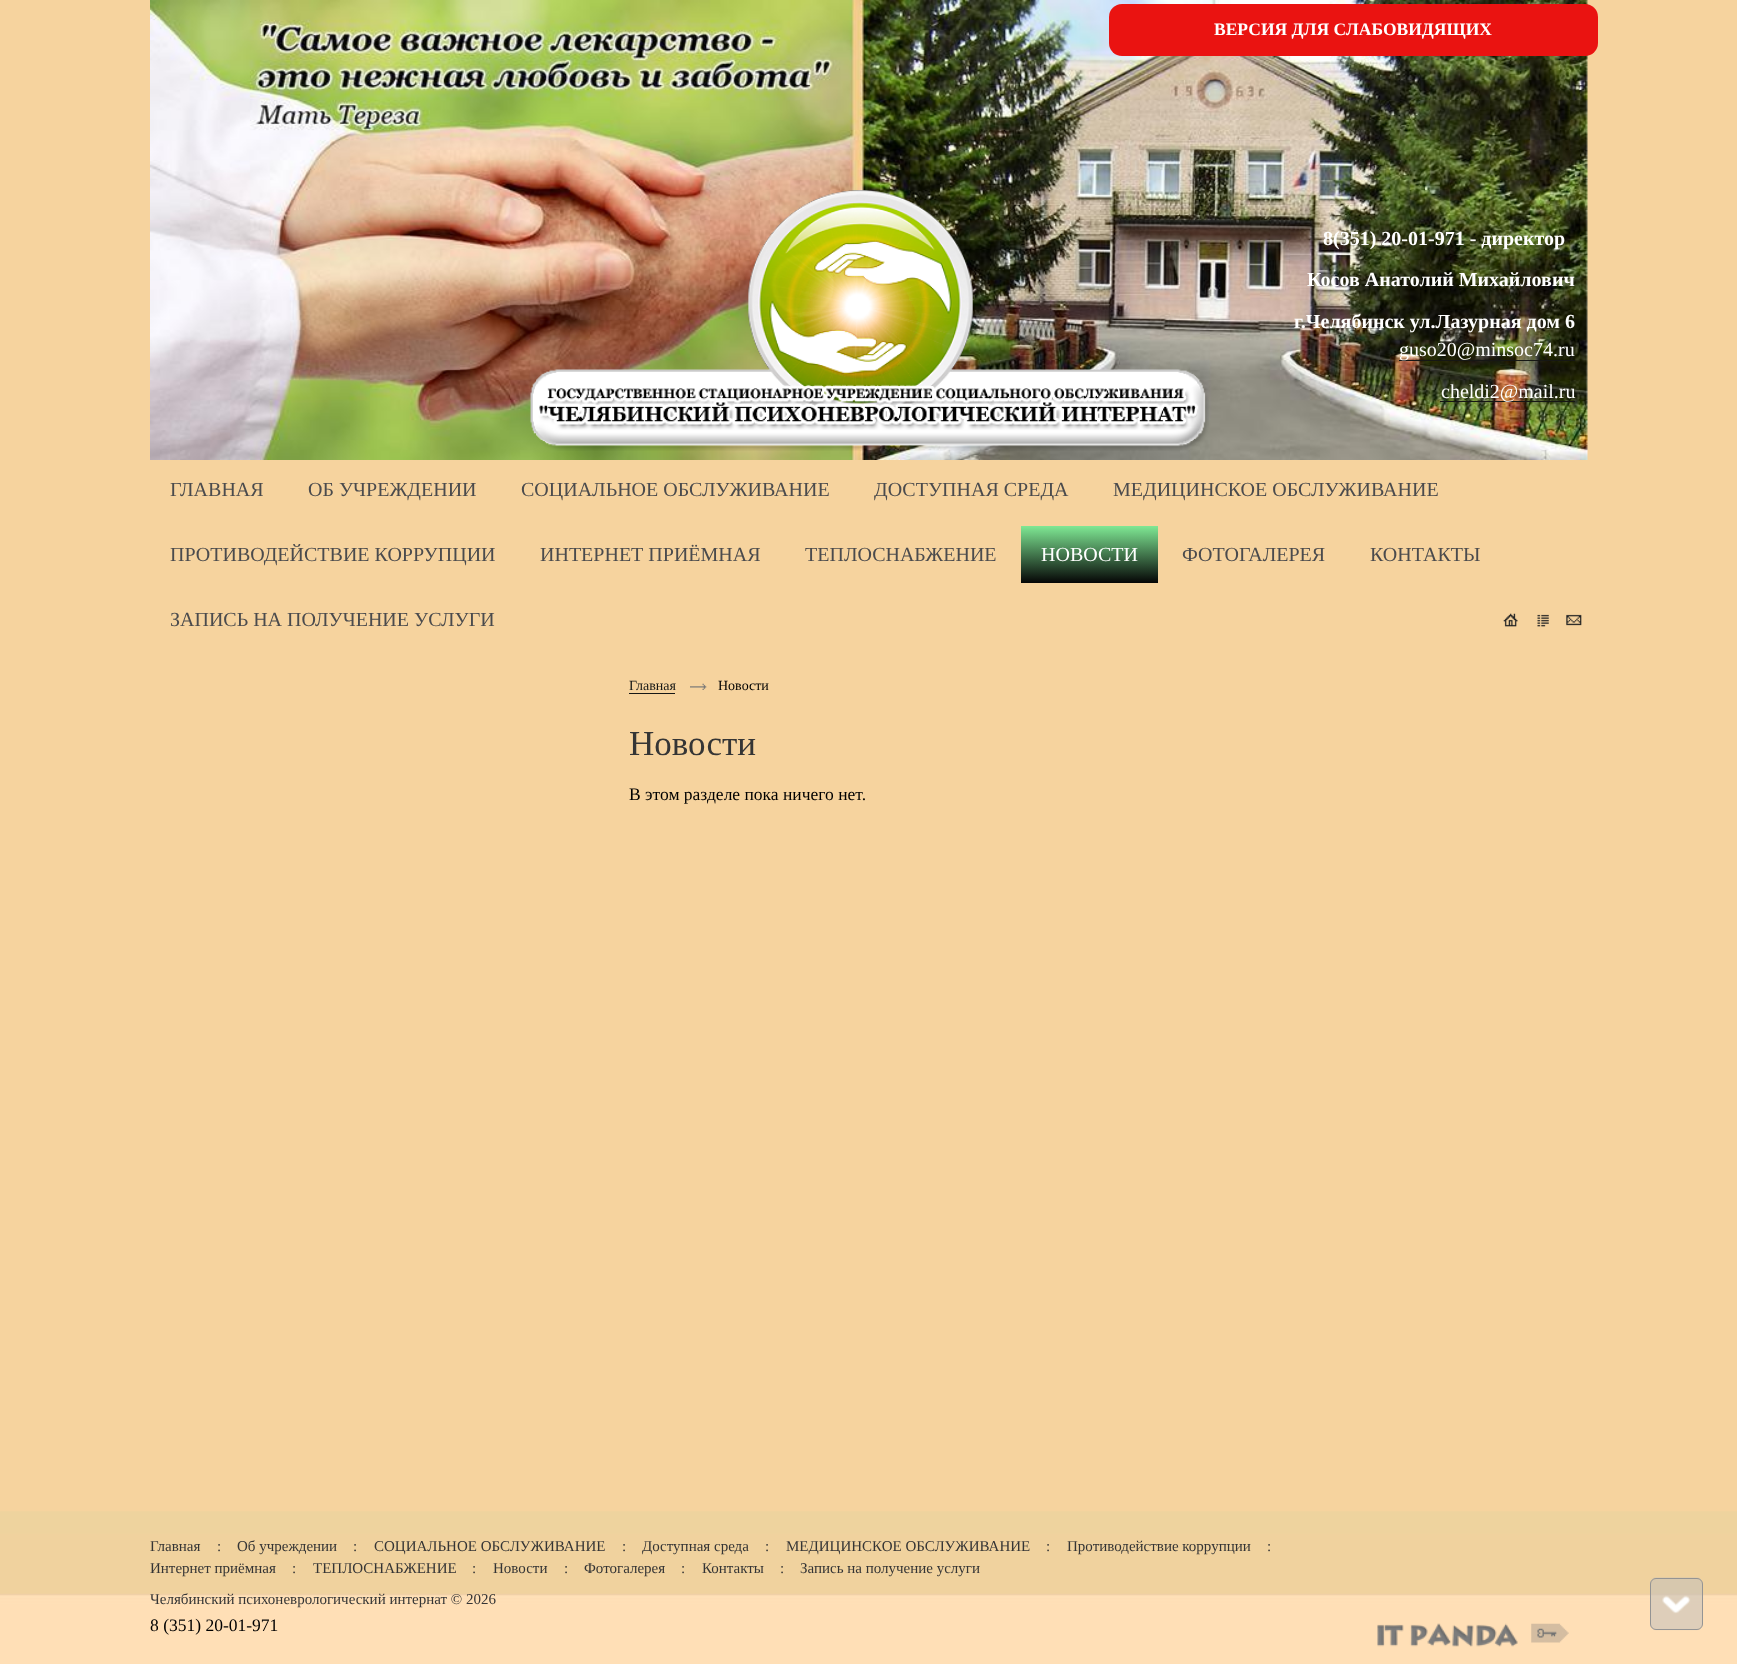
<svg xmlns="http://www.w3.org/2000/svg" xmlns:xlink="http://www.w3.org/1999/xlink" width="1737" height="1664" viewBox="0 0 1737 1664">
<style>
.cls-1{font:bold 17.5px Liberation Serif;fill:#ffffff}
.cls-2{font:bold 20px Liberation Serif;fill:#ffffff}
.cls-3{font:20px Liberation Serif;fill:#ffffff}
.cls-4{font:20px Liberation Serif;fill:#4b4b4d}
.cls-5{font:14px Liberation Serif;fill:#161715}
.cls-6{font:14px Liberation Serif;fill:#000000}
.cls-7{font:35px Liberation Serif;fill:#353535}
.cls-8{font:17.5px Liberation Serif;fill:#000000}
.cls-9{font:15px Liberation Serif;fill:#353535}
</style>
<defs>
<linearGradient id="g1" gradientUnits="userSpaceOnUse" x1="1089" y1="526" x2="1089" y2="583"><stop offset="0" stop-color="#7fe894"/><stop offset="1" stop-color="#050505"/></linearGradient>
</defs>
<rect width="100%" height="100%" fill="#f6d39e"/>
<image xlink:href="image0.png" x="150" y="0" width="1438" height="460"/>
<rect fill="#ea1311" x="1109" y="4" width="489" height="52" rx="13"/>
<image xlink:href="image1.png" x="530" y="190" width="679" height="261"/>
<rect fill="#161715" x="1399" y="360" width="176" height="1"/>
<rect fill="#161715" x="1440" y="401" width="135" height="1"/>
<rect fill="url(#g1)" x="1021" y="526" width="137" height="57"/>
<image xlink:href="image2.png" x="1503" y="613" width="15" height="14"/>
<image xlink:href="image3.png" x="1537" y="614" width="12" height="13"/>
<image xlink:href="image4.png" x="1566" y="614" width="16" height="12"/>
<rect fill="#161715" x="629" y="693" width="46" height="1"/>
<image xlink:href="image5.png" x="690" y="683" width="17" height="7"/>
<image xlink:href="image6.png" x="0" y="1511" width="1737" height="153"/>
<image xlink:href="image7.png" x="1377" y="1623" width="141" height="24"/>
<image xlink:href="image8.png" x="1531" y="1623" width="38" height="20"/>
<image xlink:href="image9.png" x="1650" y="1577" width="53" height="54"/>
<rect fill="none" stroke="#949494" x="1650.5" y="1578.5" width="52" height="51" rx="5.5"/>
<text class="cls-1" x="1214" y="35">ВЕРСИЯ ДЛЯ СЛАБОВИДЯЩИХ</text>
<text class="cls-2" x="1323" y="245">8(351) 20-01-971 - директор</text>
<text class="cls-2" x="1307" y="286">Косов Анатолий Михайлович</text>
<text class="cls-2" x="1294" y="328">г.Челябинск ул.Лазурная дом 6</text>
<text class="cls-3" x="1399" y="356">guso20@minsoc74.ru</text>
<text class="cls-3" x="1441" y="398">cheldi2@mail.ru</text>
<text class="cls-4" x="170" y="496">ГЛАВНАЯ</text>
<text class="cls-4" x="308" y="496">ОБ УЧРЕЖДЕНИИ</text>
<text class="cls-4" x="521" y="496">СОЦИАЛЬНОЕ ОБСЛУЖИВАНИЕ</text>
<text class="cls-4" x="874" y="496">ДОСТУПНАЯ СРЕДА</text>
<text class="cls-4" x="1113" y="496">МЕДИЦИНСКОЕ ОБСЛУЖИВАНИЕ</text>
<text class="cls-4" x="170" y="561">ПРОТИВОДЕЙСТВИЕ КОРРУПЦИИ</text>
<text class="cls-4" x="540" y="561">ИНТЕРНЕТ ПРИЁМНАЯ</text>
<text class="cls-4" x="805" y="561">ТЕПЛОСНАБЖЕНИЕ</text>
<text class="cls-3" x="1041" y="561">НОВОСТИ</text>
<text class="cls-4" x="1182" y="561">ФОТОГАЛЕРЕЯ</text>
<text class="cls-4" x="1370" y="561">КОНТАКТЫ</text>
<text class="cls-4" x="170" y="626">ЗАПИСЬ НА ПОЛУЧЕНИЕ УСЛУГИ</text>
<text class="cls-5" x="629" y="690">Главная</text>
<text class="cls-6" x="718" y="690">Новости</text>
<text class="cls-7" x="629" y="755">Новости</text>
<text class="cls-8" x="629" y="800">В этом разделе пока ничего нет.</text>
<text class="cls-9" x="150" y="1551">Главная</text>
<text class="cls-9" x="217" y="1551">:</text>
<text class="cls-9" x="237" y="1551">Об учреждении</text>
<text class="cls-9" x="353" y="1551">:</text>
<text class="cls-9" x="374" y="1551">СОЦИАЛЬНОЕ ОБСЛУЖИВАНИЕ</text>
<text class="cls-9" x="622" y="1551">:</text>
<text class="cls-9" x="642" y="1551">Доступная среда</text>
<text class="cls-9" x="765" y="1551">:</text>
<text class="cls-9" x="786" y="1551">МЕДИЦИНСКОЕ ОБСЛУЖИВАНИЕ</text>
<text class="cls-9" x="1046" y="1551">:</text>
<text class="cls-9" x="1067" y="1551">Противодействие коррупции</text>
<text class="cls-9" x="1267" y="1551">:</text>
<text class="cls-9" x="150" y="1573">Интернет приёмная</text>
<text class="cls-9" x="292" y="1573">:</text>
<text class="cls-9" x="313" y="1573">ТЕПЛОСНАБЖЕНИЕ</text>
<text class="cls-9" x="472" y="1573">:</text>
<text class="cls-9" x="493" y="1573">Новости</text>
<text class="cls-9" x="564" y="1573">:</text>
<text class="cls-9" x="584" y="1573">Фотогалерея</text>
<text class="cls-9" x="681" y="1573">:</text>
<text class="cls-9" x="702" y="1573">Контакты</text>
<text class="cls-9" x="780" y="1573">:</text>
<text class="cls-9" x="800" y="1573">Запись на получение услуги</text>
<text class="cls-9" x="150" y="1604">Челябинский психоневрологический интернат ©</text>
<text class="cls-9" x="466" y="1604">2026</text>
<text class="cls-8" x="150" y="1631">8 (351) 20-01-971</text>
</svg>
